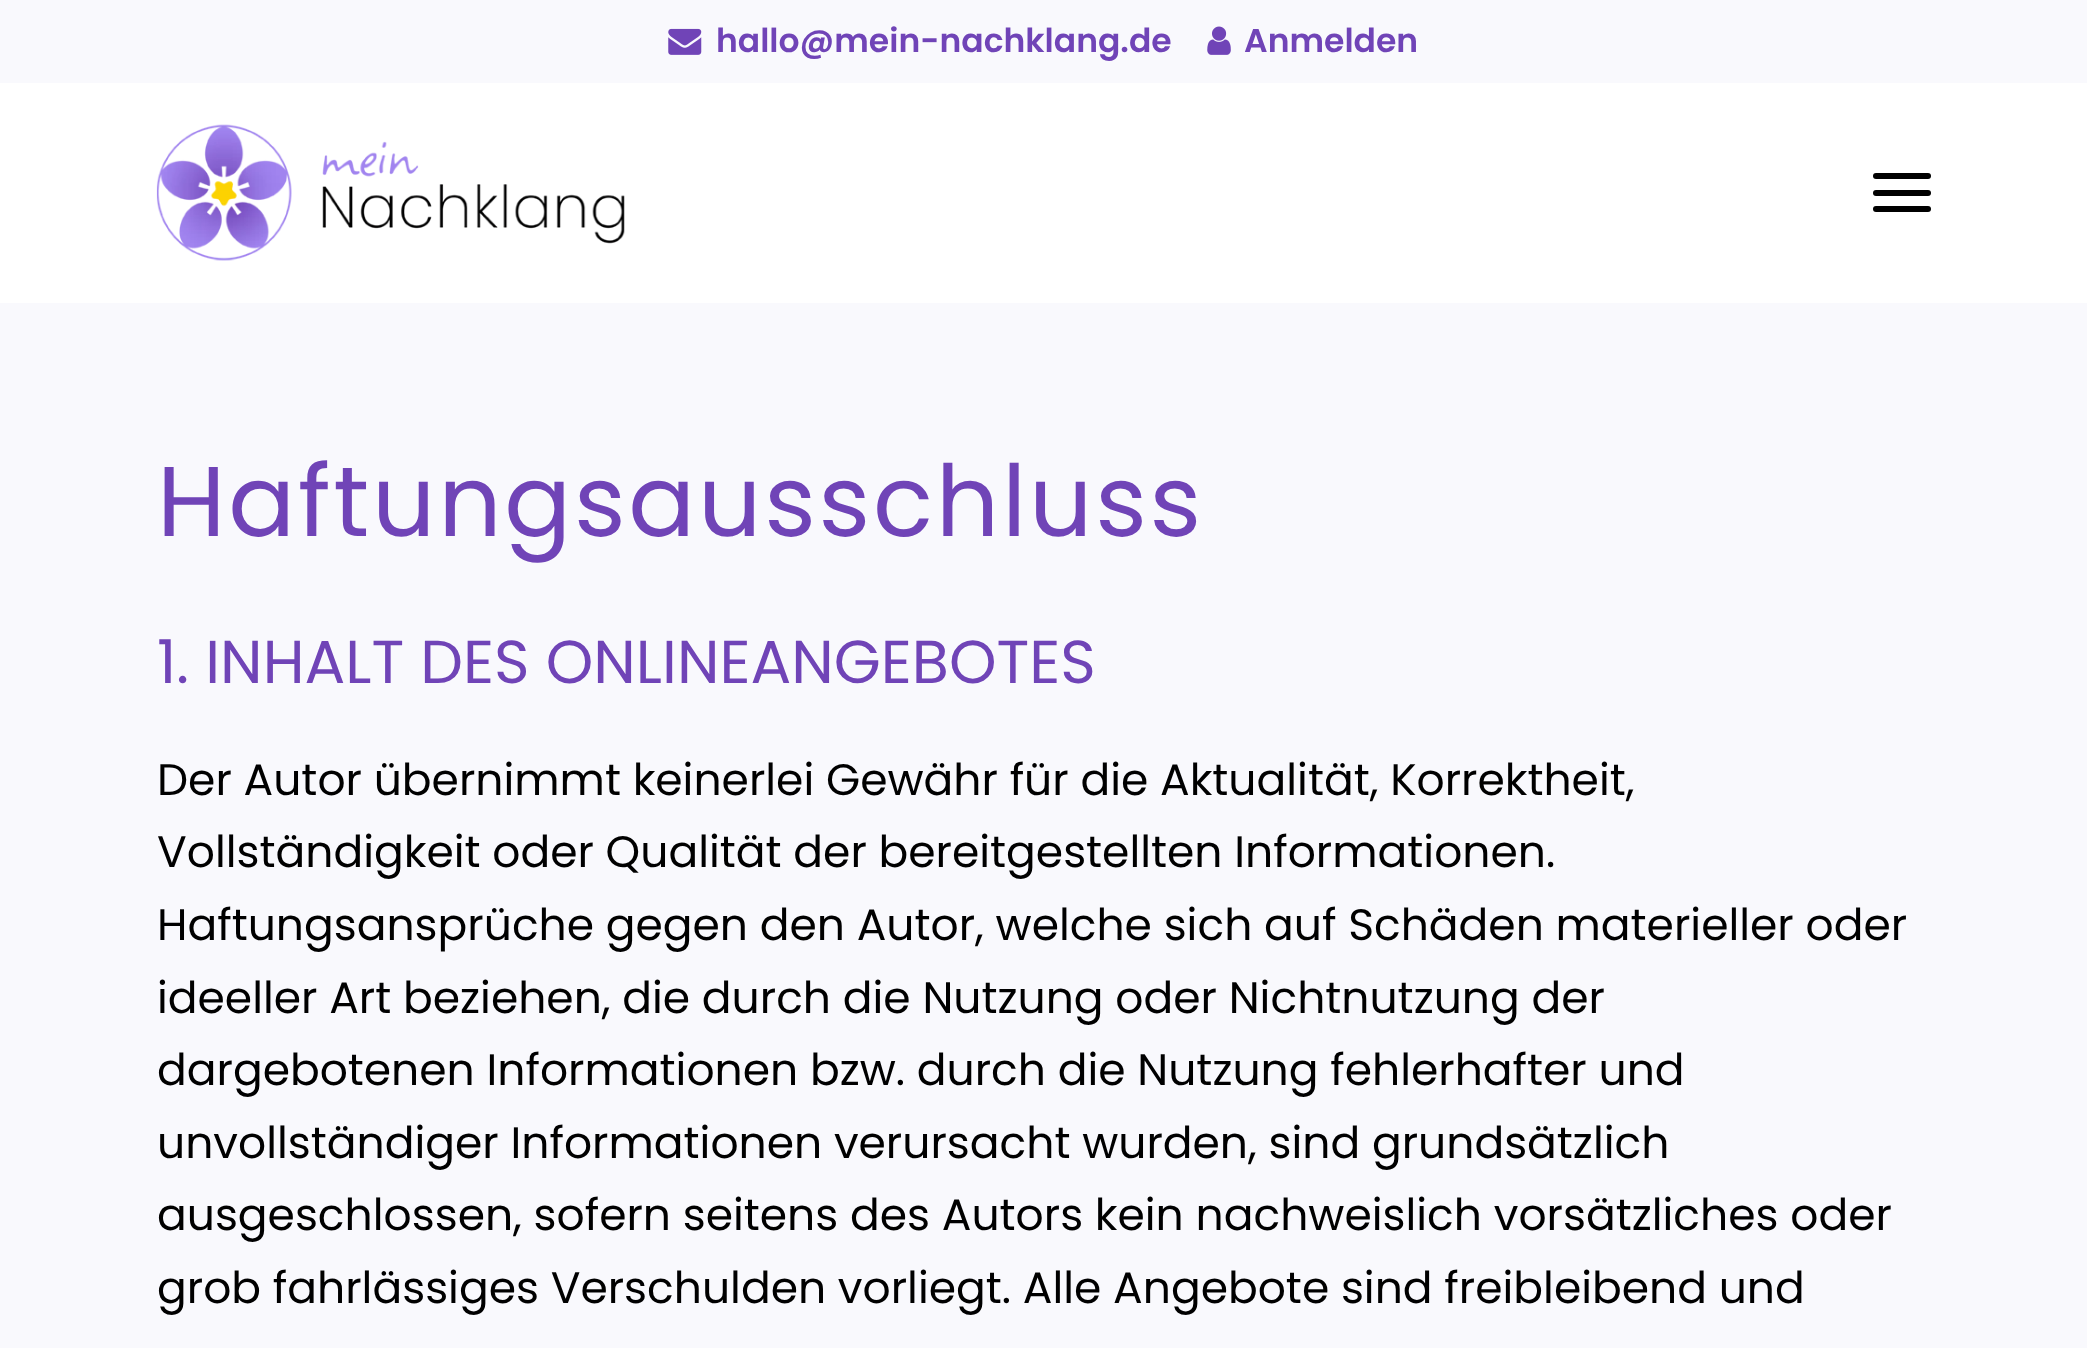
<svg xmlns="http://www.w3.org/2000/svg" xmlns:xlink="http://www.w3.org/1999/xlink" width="2087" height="1348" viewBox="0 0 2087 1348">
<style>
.cls-1{font:600 33px Poppins;fill:#7044b7}
.cls-2{font:99px Poppins;letter-spacing:2.75px;fill:#7044b7}
.cls-3{font:60.5px Poppins;fill:#7044b7}
.cls-4{font:44px Poppins;fill:#000000}
</style>
<rect width="100%" height="100%" fill="#f9f9fd"/>
<image xlink:href="image0.png" x="668" y="28" width="34" height="27"/>
<image xlink:href="image1.png" x="1207" y="26" width="24" height="29"/>
<rect fill="#ffffff" x="0" y="83" width="2087" height="220"/>
<image xlink:href="image2.png" x="156" y="124" width="469" height="137"/>
<rect fill="#000000" x="1873" y="190" width="58" height="6" rx="3"/>
<rect fill="#000000" x="1873" y="173" width="58" height="6" rx="3"/>
<rect fill="#000000" x="1873" y="206" width="58" height="6" rx="3"/>
<text class="cls-1" x="716" y="52">hallo@mein-nachklang.de</text>
<text class="cls-1" x="1244" y="52">Anmelden</text>
<text class="cls-2" x="157" y="536">Haftungsausschluss</text>
<text class="cls-3" x="157" y="683">1. INHALT DES ONLINEANGEBOTES</text>
<text class="cls-4"><tspan x="157" y="795">Der Autor übernimmt keinerlei Gewähr für die Aktualität, Korrektheit,</tspan><tspan x="157" y="867">Vollständigkeit oder Qualität der bereitgestellten Informationen.</tspan><tspan x="157" y="940">Haftungsansprüche gegen den Autor, welche sich auf Schäden materieller oder</tspan><tspan x="157" y="1013">ideeller Art beziehen, die durch die Nutzung oder Nichtnutzung der</tspan><tspan x="157" y="1085">dargebotenen Informationen bzw. durch die Nutzung fehlerhafter und</tspan><tspan x="157" y="1158">unvollständiger Informationen verursacht wurden, sind grundsätzlich</tspan><tspan x="157" y="1230">ausgeschlossen, sofern seitens des Autors kein nachweislich vorsätzliches oder</tspan><tspan x="157" y="1303">grob fahrlässiges Verschulden vorliegt. Alle Angebote sind freibleibend und</tspan></text>
</svg>
